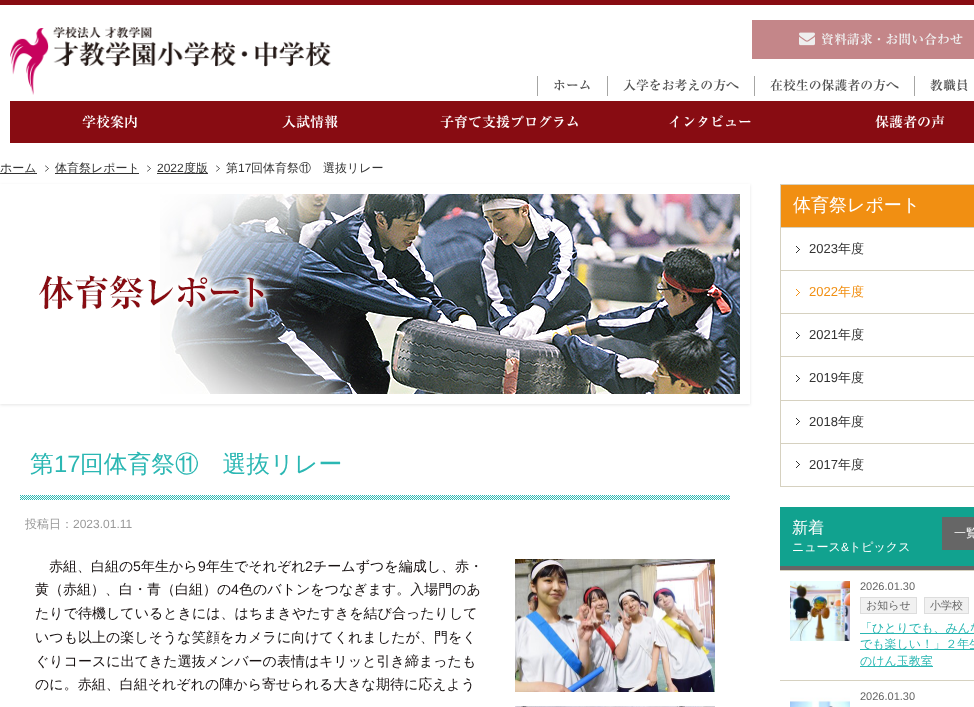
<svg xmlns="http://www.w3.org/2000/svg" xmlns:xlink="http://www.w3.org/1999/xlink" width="974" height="707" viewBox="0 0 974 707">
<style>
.cls-1{font:500 12.9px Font;fill:#eeeeee}
.cls-2{font:500 12.9px Font;fill:#555555}
.cls-3{font:500 14px Font;fill:#ffffff}
.cls-4{font:500 12px WenQuanYi Zen Hei;fill:#333333}
.cls-5{font:12px Liberation Sans;fill:#333333}
.cls-6{font:500 23.75px WenQuanYi Zen Hei;fill:#2bb7b3}
.cls-7{font:23.75px Liberation Sans;fill:#2bb7b3}
.cls-8{font:500 12px WenQuanYi Zen Hei;fill:#999999}
.cls-9{font:12px Liberation Sans;fill:#999999}
.cls-10{font:500 14px WenQuanYi Zen Hei;fill:#171111}
.cls-11{font:14px Liberation Sans;fill:#171111}
.cls-12{font:500 18px WenQuanYi Zen Hei;fill:#ffffff}
.cls-13{font:13px Liberation Sans;fill:#333333}
.cls-14{font:500 13px WenQuanYi Zen Hei;fill:#333333}
.cls-15{font:13px Liberation Sans;fill:#f18f12}
.cls-16{font:500 13px WenQuanYi Zen Hei;fill:#f18f12}
.cls-17{font:500 16px WenQuanYi Zen Hei;fill:#ffffff}
.cls-18{font:500 12px WenQuanYi Zen Hei;fill:#ffffff}
.cls-19{font:12px Liberation Sans;fill:#ffffff}
.cls-20{font:11px Liberation Sans;fill:#666666}
.cls-21{font:500 12px WenQuanYi Zen Hei;fill:#2bb7b3}
.cls-22{font:500 11px WenQuanYi Zen Hei;fill:#666666}
</style>
<defs>
<clipPath id="clip1"><path d="M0 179H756V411H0ZM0 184H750V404H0Z" clip-rule="evenodd"/></clipPath>
</defs>
<rect width="100%" height="100%" fill="#ffffff"/>
<rect fill="#880c12" x="0" y="0" width="974" height="5"/>
<image xlink:href="image0.png" x="10" y="27" width="321" height="68"/>
<rect fill="#c48689" x="752" y="20" width="222" height="39"/>
<image xlink:href="image1.png" x="799" y="32" width="16" height="14"/>
<rect fill="#a6a6a4" x="537" y="76" width="1" height="20"/>
<rect fill="#a6a6a4" x="607" y="76" width="1" height="20"/>
<rect fill="#a6a6a4" x="754" y="76" width="1" height="20"/>
<rect fill="#a6a6a4" x="914" y="76" width="1" height="20"/>
<rect fill="#880c12" x="10" y="101" width="964" height="42"/>
<rect fill="#333333" x="0" y="173" width="37" height="1"/>
<image xlink:href="image2.png" x="45" y="165" width="4" height="7"/>
<rect fill="#333333" x="55" y="173" width="84" height="1"/>
<image xlink:href="image3.png" x="147" y="165" width="4" height="7"/>
<rect fill="#333333" x="157" y="173" width="51" height="1"/>
<image xlink:href="image3.png" x="216" y="165" width="4" height="7"/>
<g clip-path="url(#clip1)">
<rect fill="#000000" fill-opacity="0.1" filter="blur(1.5px)" x="0" y="185" width="750" height="220"/>
</g>
<image xlink:href="image5.png" x="160" y="194" width="580" height="200"/>
<image xlink:href="image4.png" x="39" y="270" width="232" height="44"/>
<image xlink:href="image6.png" x="20" y="495" width="710" height="5"/>
<image xlink:href="image7.png" x="515" y="559" width="200" height="133"/>
<image xlink:href="image8.png" x="515" y="706" width="200" height="1"/>
<rect fill="none" stroke="#d6d1c0" x="780.5" y="184.5" width="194" height="302"/>
<rect fill="#f18f12" x="781" y="185" width="193" height="42"/>
<rect fill="#d6d1c0" x="781" y="227" width="193" height="1"/>
<image xlink:href="image9.png" x="796" y="246" width="4" height="7"/>
<rect fill="#d6d1c0" x="781" y="270" width="193" height="1"/>
<image xlink:href="image10.png" x="796" y="289" width="4" height="7"/>
<rect fill="#d6d1c0" x="781" y="313" width="193" height="1"/>
<image xlink:href="image9.png" x="796" y="332" width="4" height="7"/>
<rect fill="#d6d1c0" x="781" y="356" width="193" height="1"/>
<image xlink:href="image9.png" x="796" y="375" width="4" height="7"/>
<rect fill="#d6d1c0" x="781" y="400" width="193" height="1"/>
<image xlink:href="image9.png" x="796" y="418" width="4" height="7"/>
<rect fill="#d6d1c0" x="781" y="443" width="193" height="1"/>
<image xlink:href="image9.png" x="796" y="461" width="4" height="7"/>
<rect fill="#11a28f" x="780" y="507" width="194" height="59"/>
<rect fill="#666666" x="780" y="566" width="194" height="4"/>
<rect fill="#666666" x="942" y="517" width="32" height="33"/>
<rect fill="#d6d1c0" x="780" y="570" width="194" height="1"/>
<image xlink:href="image11.png" x="790" y="581" width="60" height="60"/>
<rect fill="#2bb7b3" x="860" y="633" width="114" height="1"/>
<rect fill="#2bb7b3" x="860" y="649" width="114" height="1"/>
<rect fill="#2bb7b3" x="860" y="666" width="73" height="1"/>
<rect fill="#f1f1f1" stroke="#dddddd" x="860.5" y="597.5" width="56" height="16"/>
<rect fill="#f1f1f1" stroke="#dddddd" x="924.5" y="597.5" width="44" height="16"/>
<rect fill="#d6d1c0" x="780" y="680" width="194" height="1"/>
<image xlink:href="image12.png" x="790" y="691" width="60" height="16"/>
<text class="cls-1" x="821" y="44">資料請求・お問い合わせ</text>
<text class="cls-2" x="553" y="90">ホーム</text>
<text class="cls-2" x="623" y="90">入学をお考えの方へ</text>
<text class="cls-2" x="770" y="90">在校生の保護者の方へ</text>
<text class="cls-2" x="930" y="90">教職員</text>
<text class="cls-3" x="82" y="127">学校案内</text>
<text class="cls-3" x="282" y="127">入試情報</text>
<text class="cls-3" x="440" y="127">子育て支援プログラム</text>
<text class="cls-3" x="668" y="127">インタビュー</text>
<text class="cls-3" x="875" y="127">保護者の声</text>
<text class="cls-4" x="0" y="172">ホーム</text>
<text class="cls-4" x="55" y="172">体育祭レポート</text>
<text class="cls-5" x="157" y="172">2022</text>
<text class="cls-4" x="184" y="172">度版</text>
<text class="cls-4" x="226" y="172">第</text>
<text class="cls-5" x="238" y="172">17</text>
<text class="cls-4" x="251" y="172">回体育祭⑪　選抜リレー</text>
<text class="cls-6" x="30" y="472">第</text>
<text class="cls-7" x="54" y="472">17</text>
<text class="cls-6" x="80" y="472">回体育祭⑪　選抜リレー</text>
<text class="cls-8" x="25" y="528">投稿日：</text>
<text class="cls-9" x="73" y="528">2023.01.11</text>
<text class="cls-10" x="49" y="571">赤組、白組の</text>
<text class="cls-11" x="133" y="571">5</text>
<text class="cls-10" x="141" y="571">年生から</text>
<text class="cls-11" x="198" y="571">9</text>
<text class="cls-10" x="206" y="571">年生でそれぞれ</text>
<text class="cls-11" x="305" y="571">2</text>
<text class="cls-10" x="313" y="571">チームずつを編成し、赤・</text>
<text class="cls-10" x="35" y="594">黄（赤組）、白・青（白組）の</text>
<text class="cls-11" x="231" y="594">4</text>
<text class="cls-10" x="239" y="594">色のバトンをつなぎます。入場門のあ</text>
<text class="cls-10"><tspan x="35" y="618">たりで待機しているときには、はちまきやたすきを結び合ったりして</tspan><tspan x="35" y="642">いつも以上の楽しそうな笑顔をカメラに向けてくれましたが、門をく</tspan><tspan x="35" y="666">ぐりコースに出てきた選抜メンバーの表情はキリッと引き締まったも</tspan><tspan x="35" y="689">のに。赤組、白組それぞれの陣から寄せられる大きな期待に応えよう</tspan></text>
<text class="cls-12" x="793" y="211">体育祭レポート</text>
<text class="cls-13" x="809" y="253">2023</text>
<text class="cls-14" x="838" y="253">年度</text>
<text class="cls-15" x="809" y="296">2022</text>
<text class="cls-16" x="838" y="296">年度</text>
<text class="cls-13" x="809" y="339">2021</text>
<text class="cls-14" x="838" y="339">年度</text>
<text class="cls-13" x="809" y="382">2019</text>
<text class="cls-14" x="838" y="382">年度</text>
<text class="cls-13" x="809" y="426">2018</text>
<text class="cls-14" x="838" y="426">年度</text>
<text class="cls-13" x="809" y="469">2017</text>
<text class="cls-14" x="838" y="469">年度</text>
<text class="cls-17" x="792" y="533">新着</text>
<text class="cls-18" x="954" y="537">一覧</text>
<text class="cls-18" x="792" y="551">ニュース</text>
<text class="cls-19" x="841" y="551">&amp;</text>
<text class="cls-18" x="849" y="551">トピックス</text>
<text class="cls-20" x="860" y="590">2026.01.30</text>
<text class="cls-21"><tspan x="860" y="632">「ひとりでも、みんな</tspan><tspan x="860" y="648">でも楽しい！」２年生</tspan><tspan x="860" y="665">のけん玉教室</tspan></text>
<text class="cls-22" x="866" y="609">お知らせ</text>
<text class="cls-22" x="930" y="609">小学校</text>
<text class="cls-20" x="860" y="700">2026.01.30</text>
</svg>
